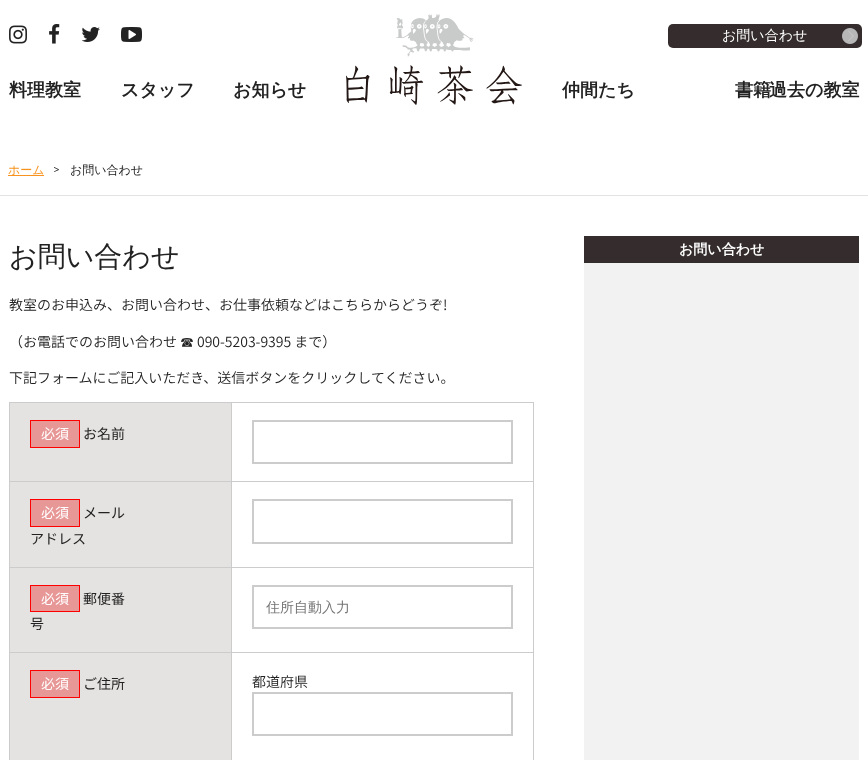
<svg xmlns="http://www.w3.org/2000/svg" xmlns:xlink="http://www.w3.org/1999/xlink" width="868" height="760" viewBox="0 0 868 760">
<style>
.cls-1{font:500 14px WenQuanYi Zen Hei;fill:#ffffff}
.cls-2{font:bold 18px WenQuanYi Zen Hei;fill:#222222}
.cls-3{font:500 12px WenQuanYi Zen Hei;fill:#f7931e}
.cls-4{font:12px Caladea;letter-spacing:-2px;fill:#222222}
.cls-5{font:500 12px WenQuanYi Zen Hei;fill:#222222}
.cls-6{font:500 28px WenQuanYi Zen Hei;fill:#222222}
.cls-7{font:300 14px Noto Sans JP;fill:#222222}
.cls-8{font:500 14px WenQuanYi Zen Hei;fill:#222222}
.cls-9{font:14px Noto Sans JP;fill:#ffffff}
.cls-10{font:14px Noto Sans JP;fill:#222222}
.cls-11{font:500 14px WenQuanYi Zen Hei;fill:#757575}
.cls-12{font:bold 14px WenQuanYi Zen Hei;fill:#ffffff}
</style>
<rect width="100%" height="100%" fill="#ffffff"/>
<image xlink:href="image0.png" x="346" y="14" width="176" height="91"/>
<image xlink:href="image1.png" x="9" y="25" width="18" height="19"/>
<image xlink:href="image2.png" x="49" y="24" width="11" height="20"/>
<image xlink:href="image3.png" x="81" y="27" width="19" height="15"/>
<image xlink:href="image4.png" x="121" y="27" width="21" height="15"/>
<rect fill="#352d2d" x="668" y="24" width="194" height="24" rx="5"/>
<image xlink:href="image5.png" x="842" y="28" width="16" height="16"/>
<rect fill="#e5e3e1" x="0" y="195" width="868" height="1"/>
<rect fill="#f7931e" x="8" y="175" width="36" height="1"/>
<rect fill="#cccccc" x="9" y="402" width="525" height="1"/>
<rect fill="#cccccc" x="533" y="402" width="1" height="358"/>
<rect fill="#cccccc" x="9" y="402" width="1" height="358"/>
<rect fill="#e5e3e1" x="10" y="403" width="221" height="78"/>
<rect fill="#e89797" stroke="#ff0000" x="30.5" y="420.5" width="49" height="27"/>
<rect fill="#cccccc" x="231" y="481" width="303" height="1"/>
<rect fill="#cccccc" x="231" y="567" width="303" height="1"/>
<rect fill="#cccccc" x="231" y="652" width="303" height="1"/>
<rect fill="#cccccc" x="231" y="652" width="1" height="108"/>
<rect fill="#cccccc" x="9" y="652" width="223" height="1"/>
<rect fill="#cccccc" x="231" y="567" width="1" height="86"/>
<rect fill="#cccccc" x="9" y="567" width="223" height="1"/>
<rect fill="#cccccc" x="231" y="481" width="1" height="87"/>
<rect fill="#cccccc" x="9" y="481" width="223" height="1"/>
<rect fill="#cccccc" x="231" y="402" width="1" height="80"/>
<rect fill="none" stroke="#cccccc" stroke-width="2" x="253" y="421" width="259" height="42"/>
<rect fill="#e5e3e1" x="10" y="482" width="221" height="85"/>
<rect fill="#e89797" stroke="#ff0000" x="30.5" y="499.5" width="49" height="27"/>
<rect fill="none" stroke="#cccccc" stroke-width="2" x="253" y="500" width="259" height="43"/>
<rect fill="#e5e3e1" x="10" y="568" width="221" height="84"/>
<rect fill="#e89797" stroke="#ff0000" x="30.5" y="585.5" width="49" height="26"/>
<rect fill="none" stroke="#cccccc" stroke-width="2" x="253" y="586" width="259" height="42"/>
<rect fill="#e5e3e1" x="10" y="653" width="221" height="107"/>
<rect fill="#e89797" stroke="#ff0000" x="30.5" y="670.5" width="49" height="27"/>
<rect fill="none" stroke="#cccccc" stroke-width="2" x="253" y="693" width="259" height="42"/>
<rect fill="#f2f2f2" x="584" y="263" width="275" height="497"/>
<rect fill="#352d2d" x="584" y="236" width="275" height="27"/>
<text class="cls-1" x="722" y="40">お問い合わせ</text>
<text class="cls-2" x="9" y="96">料理教室</text>
<text class="cls-2" x="121" y="96">スタッフ</text>
<text class="cls-2" x="233" y="96">お知らせ</text>
<text class="cls-2" x="562" y="96">仲間たち</text>
<text class="cls-2" x="769" y="96">過去の教室</text>
<text class="cls-2" x="735" y="96">書籍</text>
<text class="cls-3" x="8" y="174">ホーム</text>
<text class="cls-4" x="53" y="173">&gt;</text>
<text class="cls-5" x="70" y="174">お問い合わせ</text>
<text class="cls-6" x="9" y="266">お問い合わせ</text>
<text class="cls-7" x="9" y="310">教室のお申込み、お問い合わせ、お仕事依頼などはこちらからどうぞ!</text>
<text class="cls-7" x="9" y="347">（お電話でのお問い合わせ</text>
<text class="cls-8" x="180" y="347">☎</text>
<text class="cls-7" x="197" y="347">090-5203-9395 まで）</text>
<text class="cls-7" x="9" y="383">下記フォームにご記入いただき、送信ボタンをクリックしてください。</text>
<text class="cls-9" x="41" y="439">必須</text>
<text class="cls-10" x="83" y="439">お名前</text>
<text class="cls-9" x="41" y="518">必須</text>
<text class="cls-10" x="83" y="518">メール</text>
<text class="cls-10" x="30" y="544">アドレス</text>
<text class="cls-9" x="41" y="604">必須</text>
<text class="cls-10" x="83" y="604">郵便番</text>
<text class="cls-10" x="30" y="629">号</text>
<text class="cls-11" x="266" y="612">住所自動入力</text>
<text class="cls-9" x="41" y="689">必須</text>
<text class="cls-10" x="83" y="689">ご住所</text>
<text class="cls-7" x="252" y="687">都道府県</text>
<text class="cls-12" x="679" y="254">お問い合わせ</text>
</svg>
